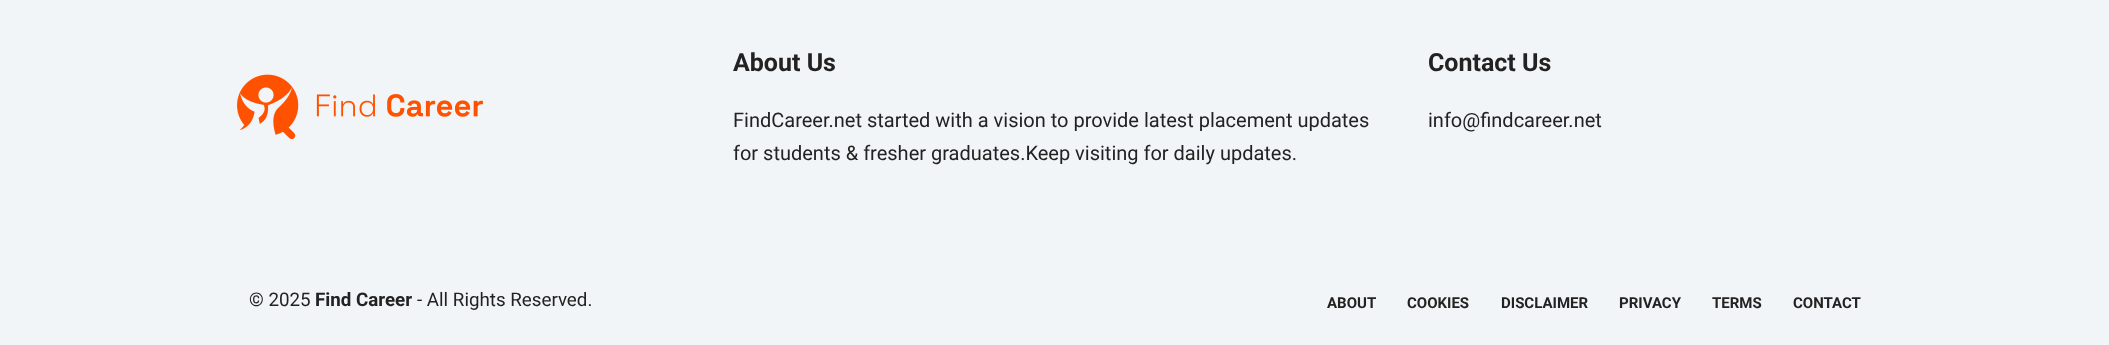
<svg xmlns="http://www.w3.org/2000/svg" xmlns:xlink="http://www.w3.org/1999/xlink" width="2109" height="345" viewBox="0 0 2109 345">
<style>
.cls-1{font:bold 25px Roboto;fill:#222222}
.cls-2{font:20px Roboto;fill:#222222}
.cls-3{font:18.75px Roboto;fill:#222222}
.cls-4{font:bold 18.75px Roboto;fill:#222222}
.cls-5{font:bold 15px Roboto;fill:#222222}
</style>
<rect width="100%" height="100%" fill="#f2f5f7"/>
<image xlink:href="image0.png" x="237" y="74" width="246" height="66"/>
<text class="cls-1" x="733" y="71">About Us</text>
<text class="cls-2"><tspan x="733" y="127">FindCareer.net started with a vision to provide latest placement updates</tspan><tspan x="733" y="160">for students &amp; fresher graduates.Keep visiting for daily updates.</tspan></text>
<text class="cls-1" x="1428" y="71">Contact Us</text>
<text class="cls-2" x="1428" y="127">info@findcareer.net</text>
<text class="cls-3" x="249" y="306">© 2025</text>
<text class="cls-4" x="315" y="306">Find Career</text>
<text class="cls-3" x="417" y="306">- All Rights Reserved.</text>
<text class="cls-5" x="1327" y="308">ABOUT</text>
<text class="cls-5" x="1407" y="308">COOKIES</text>
<text class="cls-5" x="1501" y="308">DISCLAIMER</text>
<text class="cls-5" x="1619" y="308">PRIVACY</text>
<text class="cls-5" x="1712" y="308">TERMS</text>
<text class="cls-5" x="1793" y="308">CONTACT</text>
</svg>
